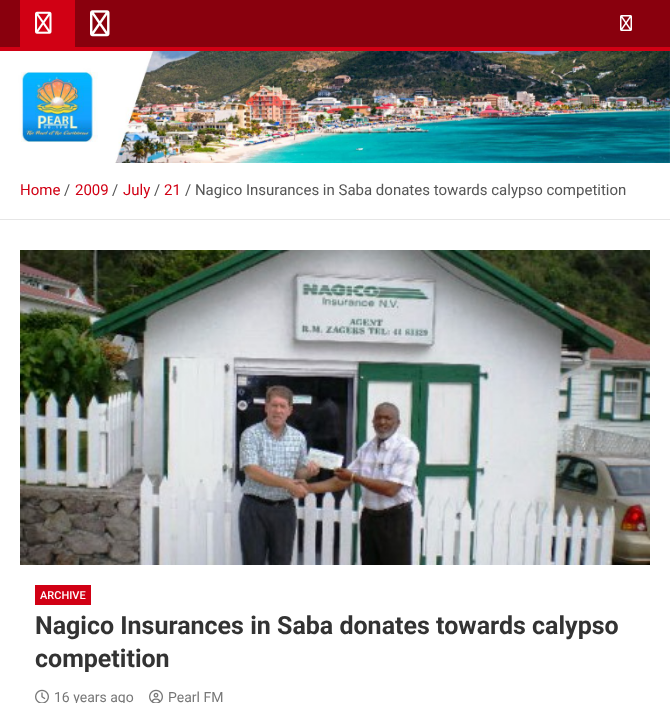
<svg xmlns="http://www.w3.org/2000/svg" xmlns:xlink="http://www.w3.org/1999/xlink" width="670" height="703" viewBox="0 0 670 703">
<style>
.cls-1{font:15px Roboto;fill:#d10014}
.cls-2{font:15px Roboto;fill:#555555}
.cls-3{font:500 11px Roboto;fill:#ffffff}
.cls-4{font:bold 25px Roboto;fill:#333333}
.cls-5{font:14px Roboto;fill:#777777}
</style>
<rect width="100%" height="100%" fill="#ffffff"/>
<rect fill="#89000d" x="0" y="0" width="670" height="47"/>
<rect fill="#d10014" x="20" y="0" width="55" height="47"/>
<image xlink:href="image0.png" x="35" y="11" width="17" height="23"/>
<image xlink:href="image1.png" x="90" y="10" width="20" height="27"/>
<image xlink:href="image2.png" x="620" y="15" width="12" height="16"/>
<rect fill="#d10014" x="0" y="47" width="670" height="4"/>
<image xlink:href="image3.png" x="0" y="51" width="670" height="112"/>
<rect fill="#e6e6e6" x="0" y="219" width="670" height="1"/>
<image xlink:href="image4.png" x="20" y="250" width="630" height="315"/>
<rect fill="#d10014" x="35" y="585" width="56" height="20"/>
<image xlink:href="image5.png" x="35" y="689" width="14" height="14"/>
<image xlink:href="image6.png" x="149" y="689" width="14" height="14"/>
<text class="cls-1" x="20" y="195">Home</text>
<text class="cls-2" x="64" y="195">/</text>
<text class="cls-1" x="75" y="195">2009</text>
<text class="cls-2" x="112" y="195">/</text>
<text class="cls-1" x="123" y="195">July</text>
<text class="cls-2" x="154" y="195">/</text>
<text class="cls-1" x="164" y="195">21</text>
<text class="cls-2" x="185" y="195">/ Nagico Insurances in Saba donates towards calypso competition</text>
<text class="cls-3" x="40" y="599">ARCHIVE</text>
<text class="cls-4"><tspan x="35" y="634">Nagico Insurances in Saba donates towards calypso</tspan><tspan x="35" y="667">competition</tspan></text>
<text class="cls-5" x="54" y="702">16 years ago</text>
<text class="cls-5" x="168" y="702">Pearl FM</text>
</svg>
